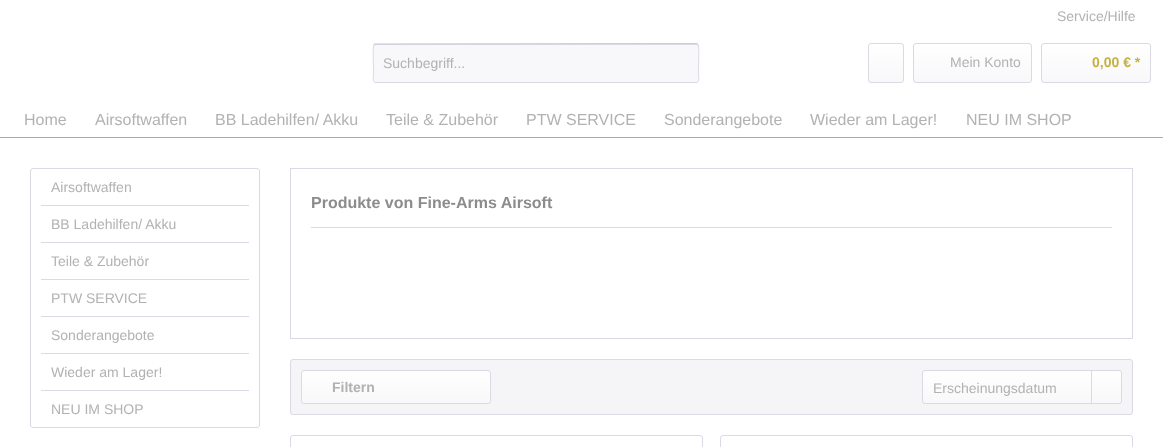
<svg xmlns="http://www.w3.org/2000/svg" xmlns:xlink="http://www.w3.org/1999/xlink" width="1163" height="447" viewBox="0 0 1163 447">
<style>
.cls-1{font:14px Liberation Sans;fill:#b2b2b2}
.cls-2{font:bold 14px Liberation Sans;fill:#c6b13d}
.cls-3{font:16px Liberation Sans;fill:#b2b2b2}
.cls-4{font:bold 16px Liberation Sans;fill:#8c8c8c}
.cls-5{font:bold 14px Liberation Sans;fill:#b2b2b2}
</style>
<defs>
<linearGradient id="g1" gradientUnits="userSpaceOnUse" x1="886" y1="44" x2="886" y2="82"><stop offset="0" stop-color="#ffffff"/><stop offset="1" stop-color="#f8f8fa"/></linearGradient>
<linearGradient id="g2" gradientUnits="userSpaceOnUse" x1="973" y1="44" x2="973" y2="82"><stop offset="0" stop-color="#ffffff"/><stop offset="1" stop-color="#f8f8fa"/></linearGradient>
<linearGradient id="g3" gradientUnits="userSpaceOnUse" x1="1096" y1="44" x2="1096" y2="82"><stop offset="0" stop-color="#ffffff"/><stop offset="1" stop-color="#f8f8fa"/></linearGradient>
<linearGradient id="g4" gradientUnits="userSpaceOnUse" x1="396" y1="371" x2="396" y2="403"><stop offset="0" stop-color="#ffffff"/><stop offset="1" stop-color="#f8f8fa"/></linearGradient>
<linearGradient id="g5" gradientUnits="userSpaceOnUse" x1="1022" y1="371" x2="1022" y2="403"><stop offset="0" stop-color="#ffffff"/><stop offset="1" stop-color="#f8f8fa"/></linearGradient>
</defs>
<rect width="100%" height="100%" fill="#ffffff"/>
<rect fill="#f8f8fa" x="373" y="43" width="326" height="40" rx="3"/>
<path fill="#dadae5" d="M376 45H696C697 45 698 46 698 47C698 46 698 44 696 44H375L374 45V47C374 46 375 45 376 45Z"/>
<path fill="none" stroke="#cbcbdb" d="M374 44H375L642.5 43.5H696L698 44"/>
<path fill="none" stroke="#dadae5" d="M698 44C699.5 46 698.5 65 698.5 68.5V74.5C698.5 76 700 82.5 696 82.5H376C372 82.5 373.5 76 373.5 74.5V68.5C373.5 65 372.5 46 374 44"/>
<rect fill="url(#g1)" x="869" y="44" width="34" height="38" rx="2"/>
<rect fill="none" stroke="#dadae5" x="868.5" y="43.5" width="35" height="39" rx="2.5"/>
<rect fill="url(#g2)" x="914" y="44" width="117" height="38" rx="2"/>
<rect fill="none" stroke="#dadae5" x="913.5" y="43.5" width="118" height="39" rx="2.5"/>
<rect fill="url(#g3)" x="1042" y="44" width="108" height="38" rx="2"/>
<rect fill="none" stroke="#dadae5" x="1041.5" y="43.5" width="109" height="39" rx="2.5"/>
<rect fill="#c6b13d" x="0" y="137" width="1163" height="1"/>
<rect fill="none" stroke="#dadae5" x="30.5" y="168.5" width="229" height="259" rx="2.5"/>
<rect fill="#dadae5" x="41" y="205" width="208" height="1"/>
<rect fill="#dadae5" x="41" y="242" width="208" height="1"/>
<rect fill="#dadae5" x="41" y="279" width="208" height="1"/>
<rect fill="#dadae5" x="41" y="316" width="208" height="1"/>
<rect fill="#dadae5" x="41" y="353" width="208" height="1"/>
<rect fill="#dadae5" x="41" y="390" width="208" height="1"/>
<rect fill="none" stroke="#dadae5" x="290.5" y="168.5" width="842" height="170"/>
<rect fill="#dadae5" x="311" y="227" width="801" height="1"/>
<rect fill="#f5f5f8" stroke="#dadae5" x="290.5" y="359.5" width="842" height="55" rx="2.5"/>
<rect fill="url(#g4)" x="302" y="371" width="188" height="32" rx="2"/>
<rect fill="none" stroke="#dadae5" x="301.5" y="370.5" width="189" height="33" rx="2.5"/>
<rect fill="url(#g5)" x="923" y="371" width="198" height="32" rx="2"/>
<rect fill="none" stroke="#dadae5" x="922.5" y="370.5" width="199" height="33" rx="2.5"/>
<rect fill="#dadae5" x="1091" y="371" width="1" height="33"/>
<rect fill="none" stroke="#dadae5" x="290.5" y="435.5" width="412" height="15" rx="2.5"/>
<rect fill="none" stroke="#dadae5" x="720.5" y="435.5" width="412" height="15" rx="2.5"/>
<text class="cls-1" x="1057" y="21">Service/Hilfe</text>
<text class="cls-1" x="383" y="68">Suchbegriff...</text>
<text class="cls-1" x="950" y="67">Mein Konto</text>
<text class="cls-2" x="1092" y="67">0,00 € *</text>
<text class="cls-3" x="24" y="125">Home</text>
<text class="cls-3" x="95" y="125">Airsoftwaffen</text>
<text class="cls-3" x="215" y="125">BB Ladehilfen/ Akku</text>
<text class="cls-3" x="386" y="125">Teile &amp; Zubehör</text>
<text class="cls-3" x="526" y="125">PTW SERVICE</text>
<text class="cls-3" x="664" y="125">Sonderangebote</text>
<text class="cls-3" x="810" y="125">Wieder am Lager!</text>
<text class="cls-3" x="966" y="125">NEU IM SHOP</text>
<text class="cls-1" x="51" y="192">Airsoftwaffen</text>
<text class="cls-1" x="51" y="229">BB Ladehilfen/ Akku</text>
<text class="cls-1" x="51" y="266">Teile &amp; Zubehör</text>
<text class="cls-1" x="51" y="303">PTW SERVICE</text>
<text class="cls-1" x="51" y="340">Sonderangebote</text>
<text class="cls-1" x="51" y="377">Wieder am Lager!</text>
<text class="cls-1" x="51" y="414">NEU IM SHOP</text>
<text class="cls-4" x="311" y="208">Produkte von Fine-Arms Airsoft</text>
<text class="cls-5" x="332" y="392">Filtern</text>
<text class="cls-1" x="933" y="393">Erscheinungsdatum</text>
</svg>
